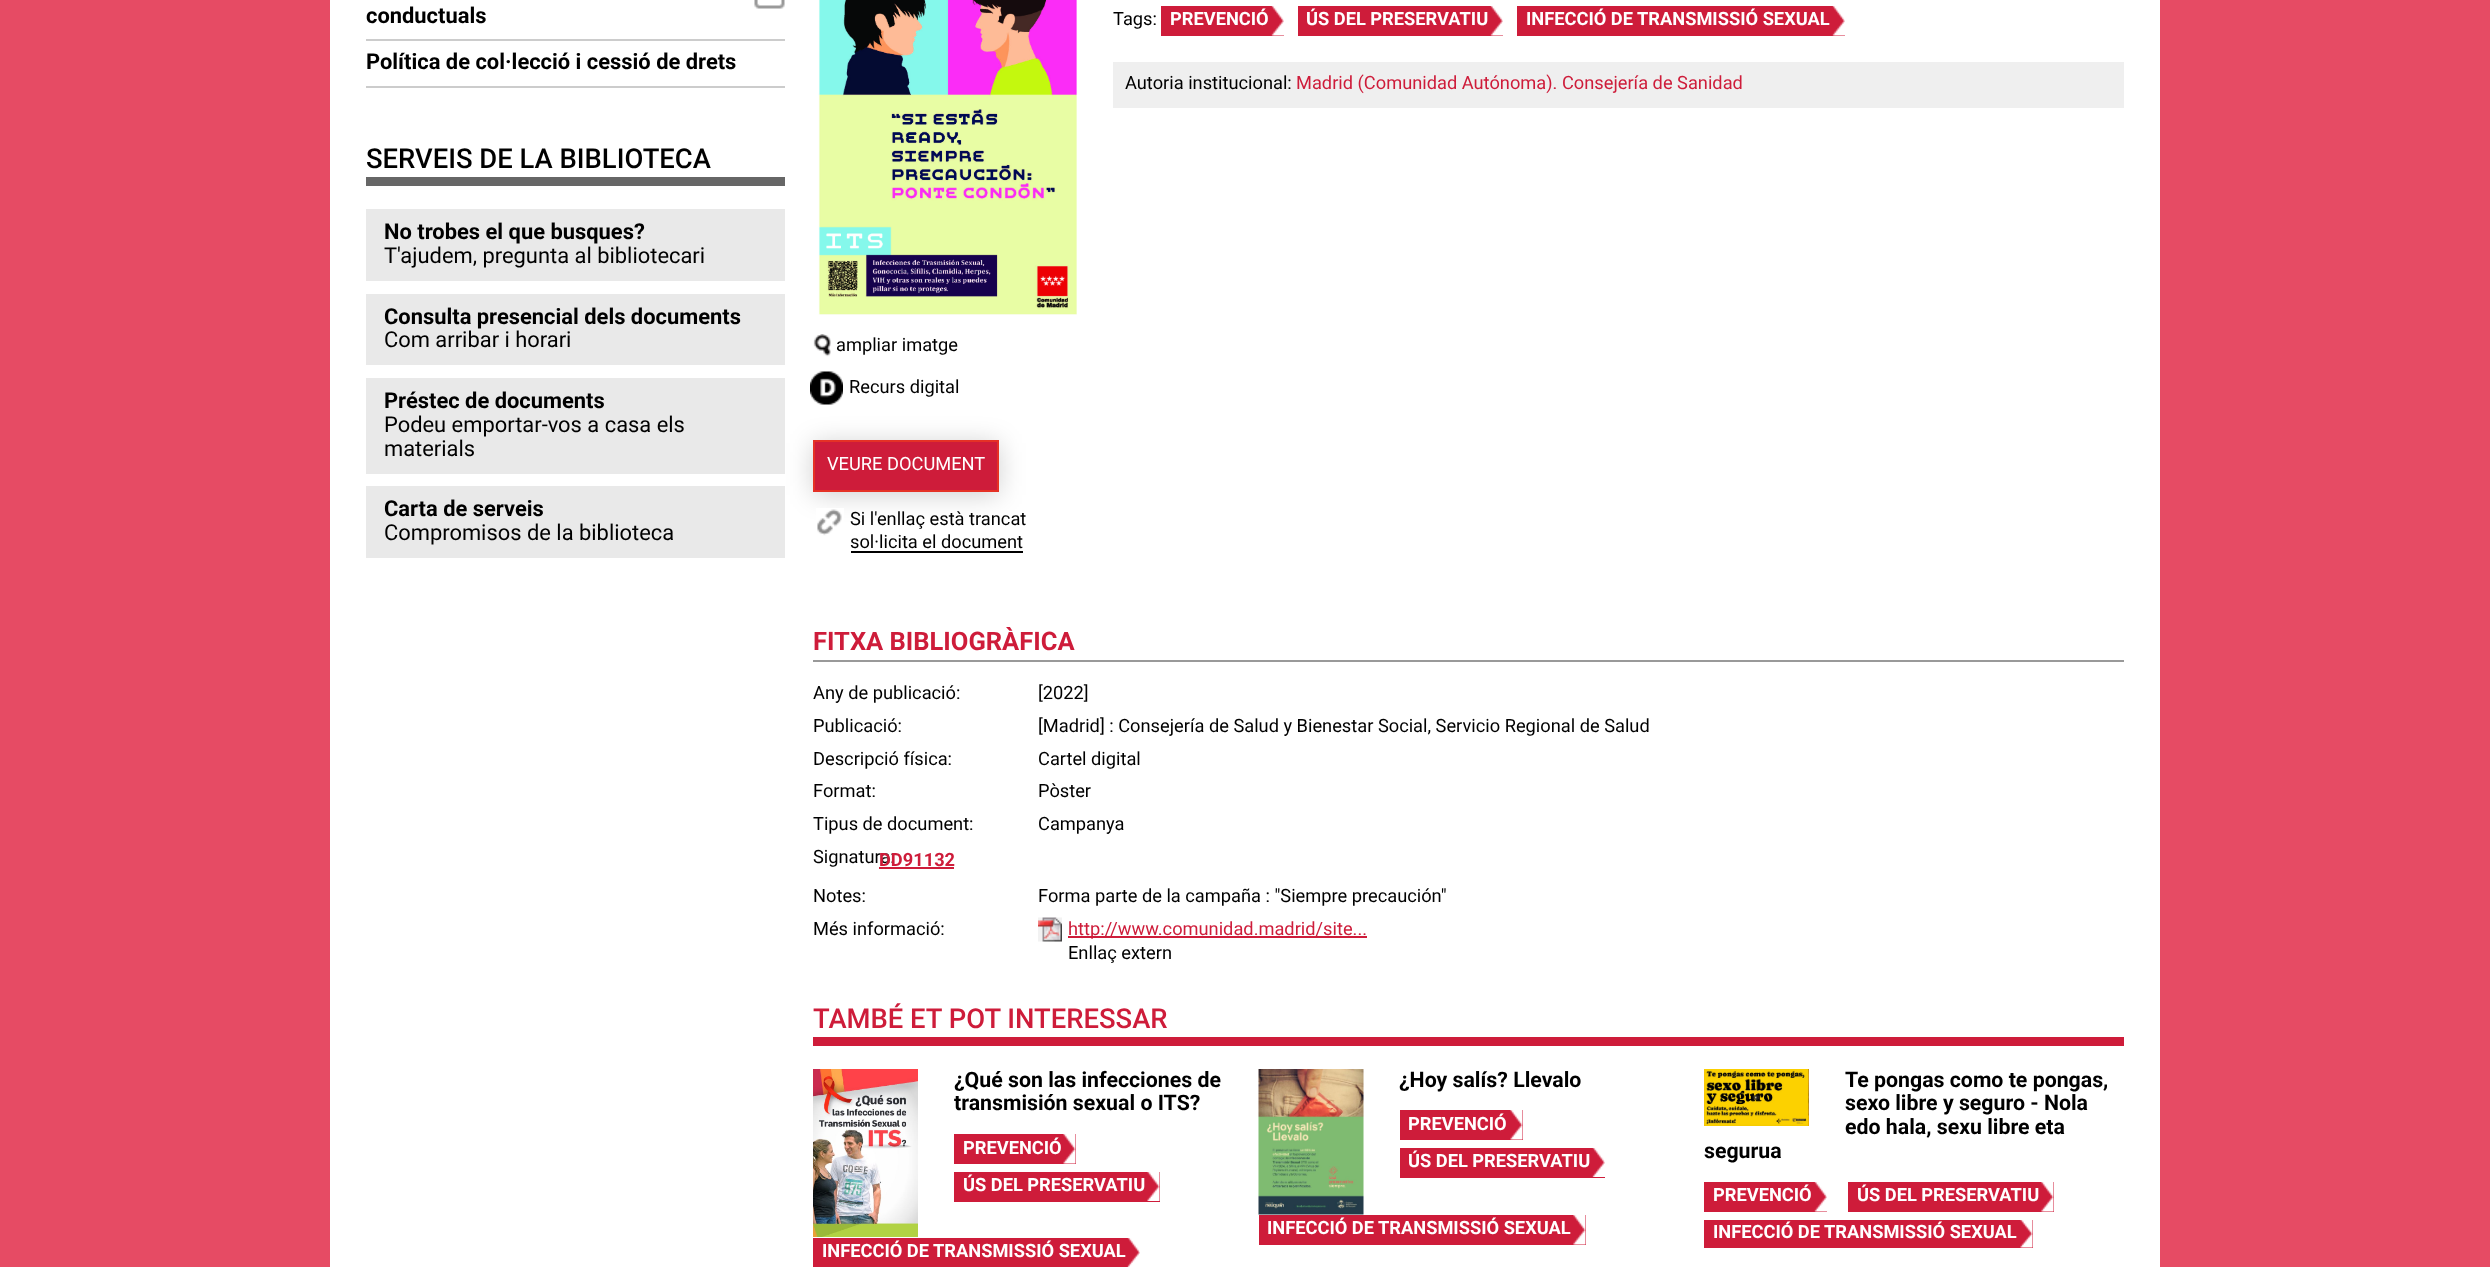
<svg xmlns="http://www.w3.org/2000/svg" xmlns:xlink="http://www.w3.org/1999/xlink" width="2490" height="1267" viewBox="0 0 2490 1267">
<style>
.cls-1{font:bold 21.9px Roboto;fill:#000000}
.cls-2{font:500 27.4px Roboto;fill:#000000}
.cls-3{font:21.9px Roboto;fill:#000000}
.cls-4{font:18.25px Roboto;fill:#000000}
.cls-5{font:bold 18.25px Roboto;fill:#ffffff}
.cls-6{font:18.25px Roboto;fill:#ce1c3a}
.cls-7{font:18.25px Roboto;fill:#ffffff}
.cls-8{font:bold 25.5px Roboto;fill:#ce1c3a}
.cls-9{font:bold 18.25px Roboto;fill:#ce1c3a}
.cls-10{font:500 27.4px Roboto;fill:#ce1c3a}
.cls-11{font:bold 21.3px Roboto;fill:#000000}
</style>
<rect width="100%" height="100%" fill="#e64b64"/>
<rect fill="#ffffff" x="330" y="0" width="1830" height="1267"/>
<rect fill="#cccccc" x="366" y="39" width="419" height="2"/>
<image xlink:href="image0.png" x="754" y="0" width="31" height="9"/>
<rect fill="#cccccc" x="366" y="86" width="419" height="2"/>
<rect fill="#666666" x="366" y="177" width="419" height="9"/>
<rect fill="#e9e9e9" x="366" y="209" width="419" height="72"/>
<rect fill="#e9e9e9" x="366" y="294" width="419" height="71"/>
<rect fill="#e9e9e9" x="366" y="378" width="419" height="96"/>
<rect fill="#e9e9e9" x="366" y="486" width="419" height="72"/>
<rect fill="#ce1c3a" x="1161" y="6" width="123" height="30"/>
<image xlink:href="image1.png" x="1271" y="6" width="13" height="30"/>
<rect fill="#ce1c3a" x="1298" y="6" width="205" height="30"/>
<image xlink:href="image2.png" x="1490" y="6" width="13" height="30"/>
<rect fill="#ce1c3a" x="1517" y="6" width="328" height="30"/>
<image xlink:href="image1.png" x="1832" y="6" width="13" height="30"/>
<rect fill="#efefef" x="1113" y="62" width="1011" height="46"/>
<image xlink:href="image3.png" x="818" y="0" width="259" height="315"/>
<image xlink:href="image4.png" x="813" y="334" width="18" height="23"/>
<rect fill="#000000" fill-opacity="0.19" filter="blur(13px)" x="813" y="443" width="186" height="52"/>
<image xlink:href="image5.png" x="810" y="371" width="33" height="34"/>
<rect fill="#ce1c3a" stroke="#e53126" stroke-width="2" x="814" y="441" width="184" height="50"/>
<image xlink:href="image6.png" x="816" y="508" width="28" height="28"/>
<rect fill="#000000" x="851" y="551" width="172" height="2"/>
<rect fill="#999999" x="813" y="660" width="1311" height="2"/>
<rect fill="#ce1c3a" x="879" y="867" width="75" height="2"/>
<image xlink:href="image7.png" x="1038" y="917" width="24" height="25"/>
<rect fill="#ce1c3a" x="1068" y="936" width="299" height="2"/>
<rect fill="#ce1c3a" x="813" y="1037" width="1311" height="9"/>
<image xlink:href="image8.png" x="813" y="1069" width="105" height="168"/>
<rect fill="#ce1c3a" x="954" y="1134" width="122" height="30"/>
<image xlink:href="image9.png" x="1063" y="1134" width="13" height="30"/>
<rect fill="#ce1c3a" x="954" y="1172" width="206" height="30"/>
<image xlink:href="image10.png" x="1147" y="1172" width="13" height="29"/>
<rect fill="#ce1c3a" x="813" y="1238" width="327" height="29"/>
<image xlink:href="image11.png" x="1127" y="1238" width="13" height="29"/>
<image xlink:href="image12.png" x="1258" y="1069" width="106" height="146"/>
<rect fill="#ce1c3a" x="1400" y="1110" width="123" height="30"/>
<image xlink:href="image9.png" x="1510" y="1110" width="13" height="30"/>
<rect fill="#ce1c3a" x="1400" y="1148" width="205" height="30"/>
<image xlink:href="image13.png" x="1592" y="1148" width="13" height="29"/>
<rect fill="#ce1c3a" x="1259" y="1215" width="327" height="30"/>
<image xlink:href="image14.png" x="1573" y="1215" width="13" height="30"/>
<image xlink:href="image15.png" x="1704" y="1069" width="105" height="57"/>
<rect fill="#ce1c3a" x="1704" y="1182" width="123" height="30"/>
<image xlink:href="image2.png" x="1814" y="1182" width="13" height="30"/>
<rect fill="#ce1c3a" x="1848" y="1182" width="206" height="30"/>
<image xlink:href="image14.png" x="2041" y="1182" width="13" height="30"/>
<rect fill="#ce1c3a" x="1704" y="1220" width="329" height="28"/>
<image xlink:href="image16.png" x="2020" y="1220" width="13" height="28"/>
<text class="cls-1" x="366" y="23">conductuals</text>
<text class="cls-1" x="366" y="69">Política de col·lecció i cessió de drets</text>
<text class="cls-2" x="366" y="168">SERVEIS DE LA BIBLIOTECA</text>
<text class="cls-1" x="384" y="239">No trobes el que busques?</text>
<text class="cls-3" x="384" y="263">T'ajudem, pregunta al bibliotecari</text>
<text class="cls-1" x="384" y="324">Consulta presencial dels documents</text>
<text class="cls-3" x="384" y="347">Com arribar i horari</text>
<text class="cls-1" x="384" y="408">Préstec de documents</text>
<text class="cls-3"><tspan x="384" y="432">Podeu emportar-vos a casa els</tspan><tspan x="384" y="456">materials</tspan></text>
<text class="cls-1" x="384" y="516">Carta de serveis</text>
<text class="cls-3" x="384" y="540">Compromisos de la biblioteca</text>
<text class="cls-4" x="1113" y="25">Tags:</text>
<text class="cls-5" x="1170" y="25">PREVENCIÓ</text>
<text class="cls-5" x="1306" y="25">ÚS DEL PRESERVATIU</text>
<text class="cls-5" x="1526" y="25">INFECCIÓ DE TRANSMISSIÓ SEXUAL</text>
<text class="cls-4" x="1125" y="89">Autoria institucional:</text>
<text class="cls-6" x="1296" y="89">Madrid (Comunidad Autónoma). Consejería de Sanidad</text>
<text class="cls-4" x="836" y="351">ampliar imatge</text>
<text class="cls-4" x="849" y="393">Recurs digital</text>
<text class="cls-7" x="827" y="470">VEURE DOCUMENT</text>
<text class="cls-4"><tspan x="850" y="525">Si l'enllaç està trancat</tspan><tspan x="850" y="548">sol·licita el document</tspan></text>
<text class="cls-8" x="813" y="650">FITXA BIBLIOGRÀFICA</text>
<text class="cls-4" x="813" y="699">Any de publicació:</text>
<text class="cls-4" x="1038" y="699">[2022]</text>
<text class="cls-4" x="813" y="732">Publicació:</text>
<text class="cls-4" x="1038" y="732">[Madrid] : Consejería de Salud y Bienestar Social, Servicio Regional de Salud</text>
<text class="cls-4" x="813" y="765">Descripció física:</text>
<text class="cls-4" x="1038" y="765">Cartel digital</text>
<text class="cls-4" x="813" y="797">Format:</text>
<text class="cls-4" x="1038" y="797">Pòster</text>
<text class="cls-4" x="813" y="830">Tipus de document:</text>
<text class="cls-4" x="1038" y="830">Campanya</text>
<text class="cls-4" x="813" y="863">Signatura:</text>
<text class="cls-9" x="879" y="866">DD91132</text>
<text class="cls-4" x="813" y="902">Notes:</text>
<text class="cls-4" x="1038" y="902">Forma parte de la campaña : "Siempre precaución"</text>
<text class="cls-4" x="813" y="935">Més informació:</text>
<text class="cls-6" x="1068" y="935">http://www.comunidad.madrid/site...</text>
<text class="cls-4" x="1068" y="959">Enllaç extern</text>
<text class="cls-10" x="813" y="1028">TAMBÉ ET POT INTERESSAR</text>
<text class="cls-11"><tspan x="954" y="1087">¿Qué son las infecciones de</tspan><tspan x="954" y="1110">transmisión sexual o ITS?</tspan></text>
<text class="cls-5" x="963" y="1154">PREVENCIÓ</text>
<text class="cls-5" x="963" y="1191">ÚS DEL PRESERVATIU</text>
<text class="cls-5" x="822" y="1257">INFECCIÓ DE TRANSMISSIÓ SEXUAL</text>
<text class="cls-11" x="1399" y="1087">¿Hoy salís? Llevalo</text>
<text class="cls-5" x="1408" y="1130">PREVENCIÓ</text>
<text class="cls-5" x="1408" y="1167">ÚS DEL PRESERVATIU</text>
<text class="cls-5" x="1267" y="1234">INFECCIÓ DE TRANSMISSIÓ SEXUAL</text>
<text class="cls-11"><tspan x="1845" y="1087">Te pongas como te pongas,</tspan><tspan x="1845" y="1110">sexo libre y seguro - Nola</tspan><tspan x="1845" y="1134">edo hala, sexu libre eta</tspan></text>
<text class="cls-11" x="1704" y="1158">segurua</text>
<text class="cls-5" x="1713" y="1201">PREVENCIÓ</text>
<text class="cls-5" x="1857" y="1201">ÚS DEL PRESERVATIU</text>
<text class="cls-5" x="1713" y="1238">INFECCIÓ DE TRANSMISSIÓ SEXUAL</text>
</svg>
